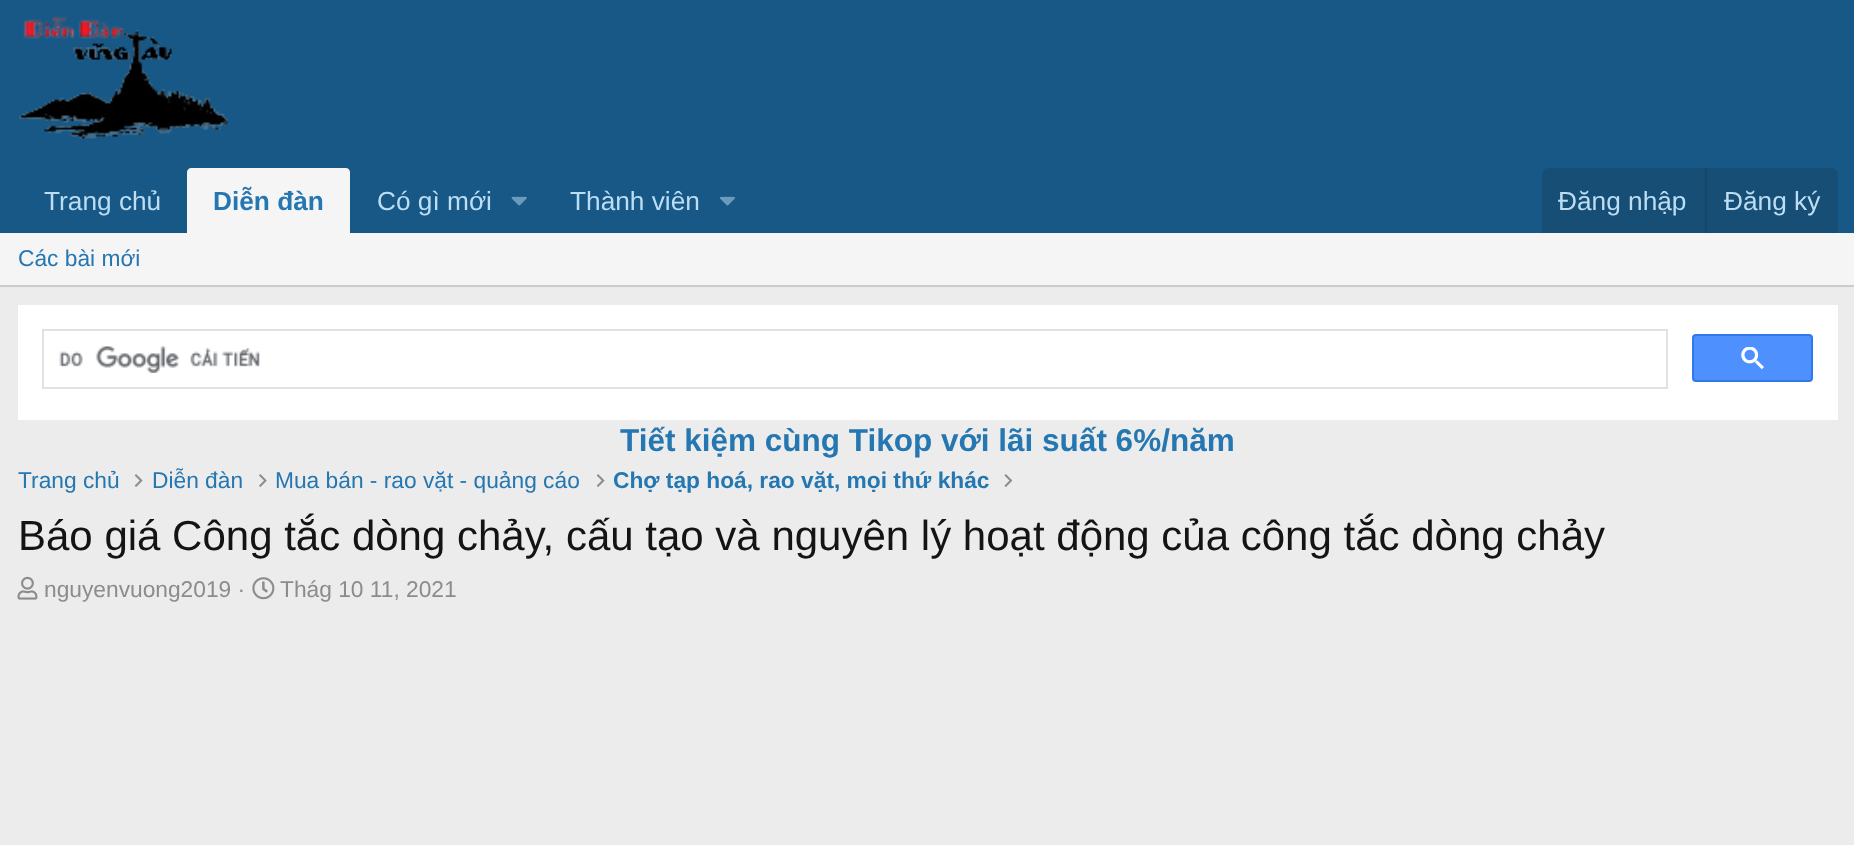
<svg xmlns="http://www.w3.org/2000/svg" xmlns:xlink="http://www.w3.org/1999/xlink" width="1854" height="845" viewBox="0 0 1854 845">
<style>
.cls-1{font:26.25px Liberation Sans;fill:#bcdef5}
.cls-2{font:bold 26.25px Liberation Sans;fill:#2577b1}
.cls-3{font:22.75px Liberation Sans;fill:#2577b1}
.cls-4{font:bold 31.5px Liberation Sans;fill:#2577b1}
.cls-5{font:bold 22.75px Liberation Sans;fill:#2577b1}
.cls-6{font:42px Liberation Sans;fill:#141414}
.cls-7{font:22.75px Liberation Sans;fill:#8c8c8c}
</style>
<rect width="100%" height="100%" fill="#ececec"/>
<rect fill="#185886" x="0" y="0" width="1854" height="233"/>
<image xlink:href="image0.png" x="19" y="16" width="209" height="123"/>
<path fill="#f5f5f5" d="M191 168H346C348 168 350 170 350 172V233H187V172C187 170 189 168 191 168Z"/>
<image xlink:href="image1.png" x="511" y="196" width="16" height="10"/>
<image xlink:href="image2.png" x="719" y="196" width="16" height="10"/>
<path fill="#174e75" d="M1549 168H1831C1835 168 1838 171 1838 175V233H1542V175C1542 171 1545 168 1549 168Z"/>
<rect fill="#174566" x="1705" y="168" width="2" height="65"/>
<rect fill="#f5f5f5" x="0" y="233" width="1854" height="52"/>
<rect fill="#cbcbcb" x="0" y="285" width="1854" height="2"/>
<rect fill="#ffffff" x="18" y="305" width="1820" height="115"/>
<rect fill="none" stroke="#dfe1e5" stroke-width="2" x="43" y="330" width="1624" height="58"/>
<image xlink:href="image3.png" x="59" y="346" width="201" height="27"/>
<rect fill="#4d90fe" stroke="#3079ed" stroke-width="2" x="1693" y="335" width="119" height="46" rx="3"/>
<image xlink:href="image4.png" x="1741" y="347" width="23" height="22"/>
<image xlink:href="image5.png" x="134" y="474" width="9" height="13"/>
<image xlink:href="image6.png" x="259" y="474" width="8" height="13"/>
<image xlink:href="image5.png" x="596" y="474" width="9" height="13"/>
<image xlink:href="image7.png" x="1004" y="474" width="9" height="13"/>
<image xlink:href="image8.png" x="17" y="576" width="21" height="24"/>
<image xlink:href="image9.png" x="252" y="577" width="23" height="23"/>
<text class="cls-1" x="44" y="210">Trang chủ</text>
<text class="cls-2" x="213" y="210">Diễn đàn</text>
<text class="cls-1" x="377" y="210">Có gì mới</text>
<text class="cls-1" x="570" y="210">Thành viên</text>
<text class="cls-1" x="1558" y="210">Đăng nhập</text>
<text class="cls-1" x="1724" y="210">Đăng ký</text>
<text class="cls-3" x="18" y="266">Các bài mới</text>
<text class="cls-4" x="620" y="451">Tiết kiệm cùng Tikop với lãi suất 6%/năm</text>
<text class="cls-3" x="18" y="488">Trang chủ</text>
<text class="cls-3" x="152" y="488">Diễn đàn</text>
<text class="cls-3" x="275" y="488">Mua bán - rao vặt - quảng cáo</text>
<text class="cls-5" x="613" y="488">Chợ tạp hoá, rao vặt, mọi thứ khác</text>
<text class="cls-6" x="18" y="550">Báo giá Công tắc dòng chảy, cấu tạo và nguyên lý hoạt động của công tắc dòng chảy</text>
<text class="cls-7" x="44" y="597">nguyenvuong2019 ·</text>
<text class="cls-7" x="280" y="597">Thág 10 11, 2021</text>
</svg>
